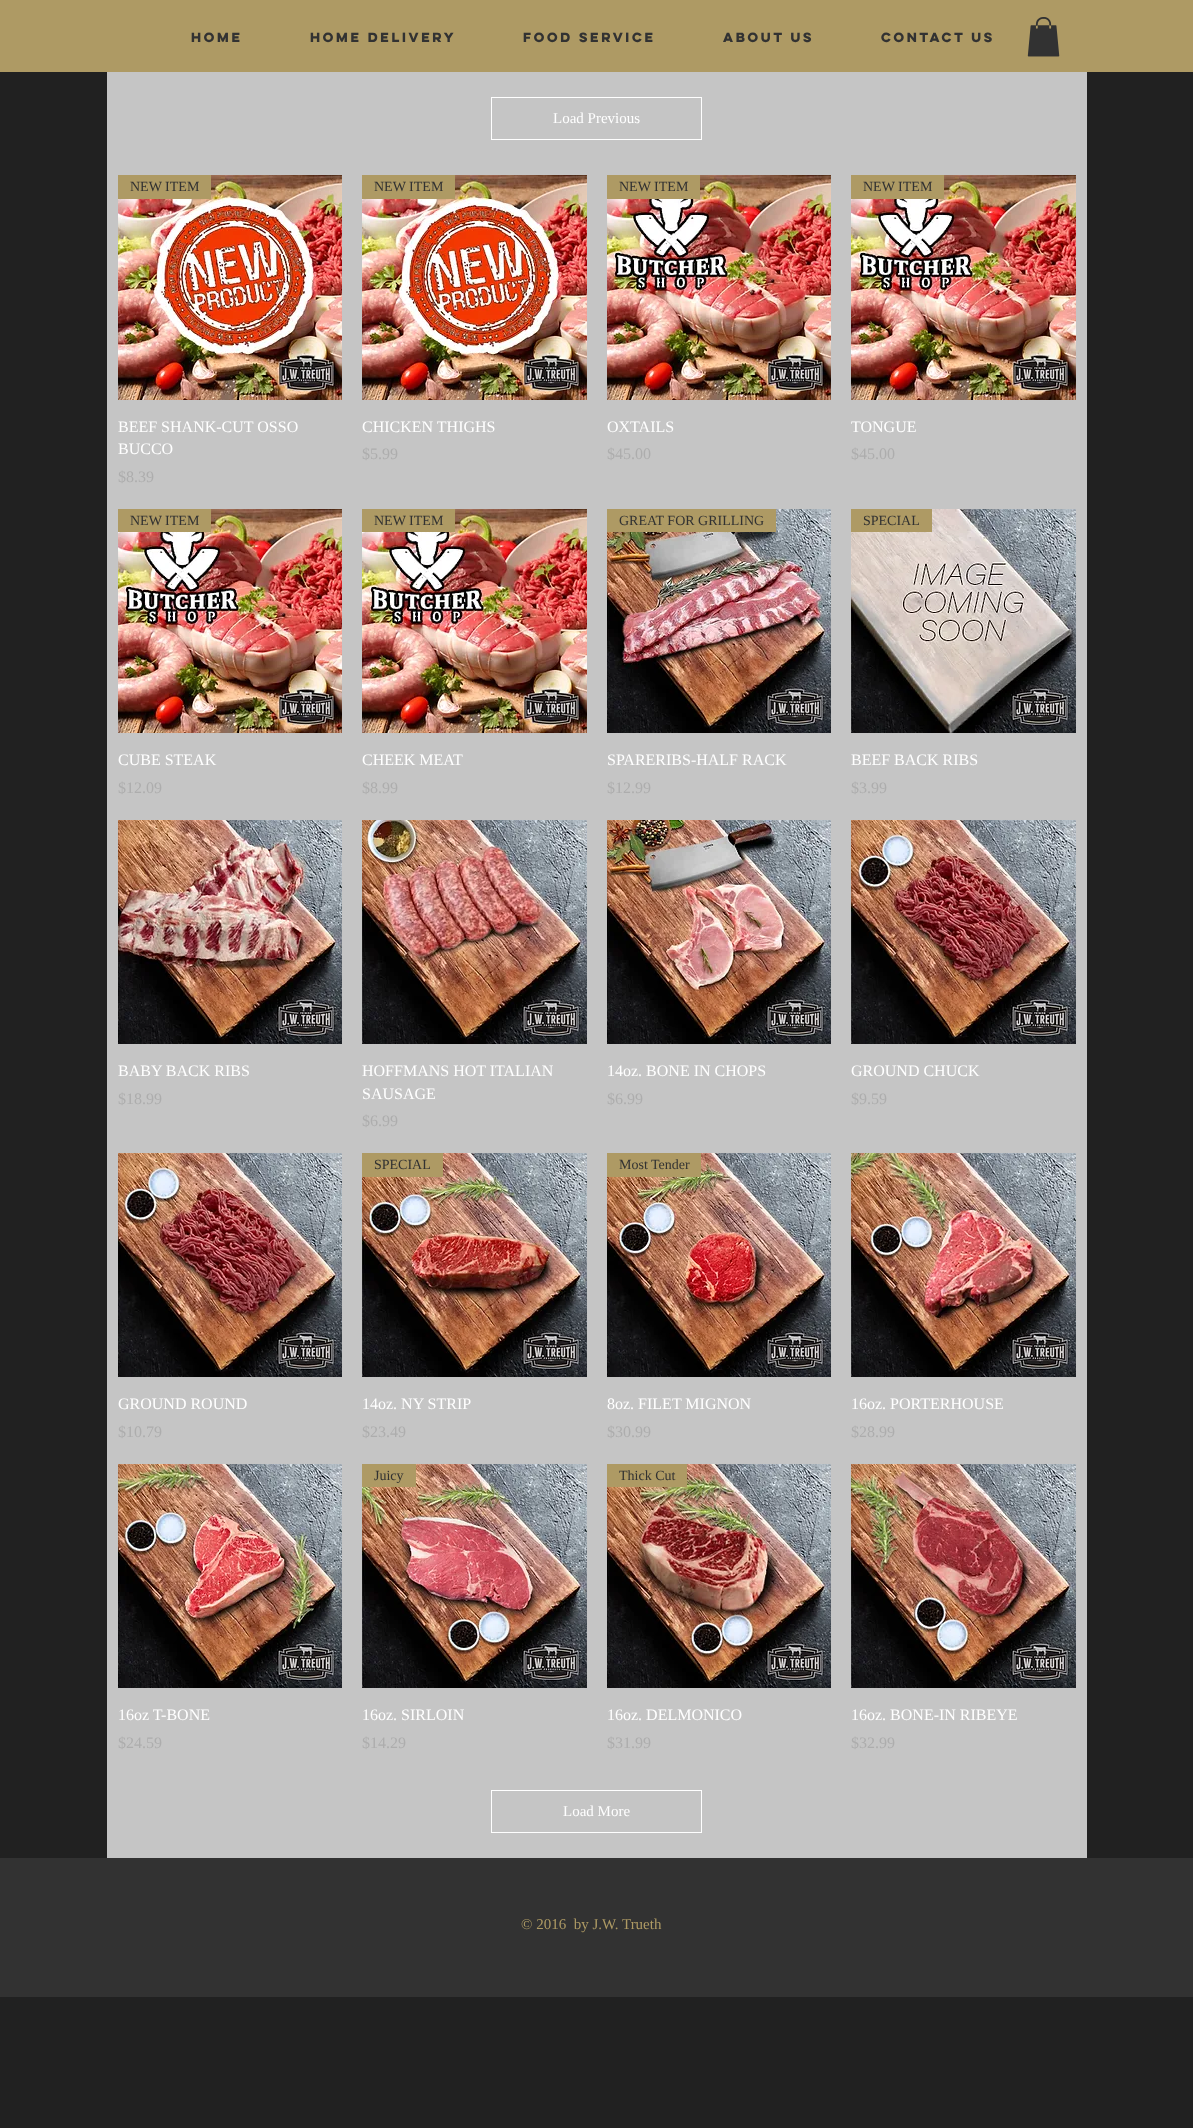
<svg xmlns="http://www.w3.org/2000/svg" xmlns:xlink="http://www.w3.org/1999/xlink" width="1193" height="2128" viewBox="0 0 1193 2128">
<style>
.cls-1{font:bold 12px 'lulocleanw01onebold';fill:#323232}
.cls-2{font:15px Liberation Serif;fill:#ffffff}
.cls-3{font:14px Liberation Serif;fill:#323232}
.cls-4{font:16px Liberation Serif;fill:#ffffff}
.cls-5{font:16px Liberation Serif;fill:#adadad}
.cls-6{font:15px Liberation Serif;fill:#ae9a64}
</style>
<rect width="100%" height="100%" fill="#212121"/>
<rect fill="#ae9a64" x="0" y="0" width="1193" height="72"/>
<image xlink:href="image0.png" x="1027" y="17" width="33" height="40"/>
<rect fill="#c5c5c5" x="107" y="72" width="980" height="1786"/>
<rect fill="none" stroke="#ffffff" x="491.5" y="97.5" width="210" height="42"/>
<image xlink:href="image1.png" x="118" y="175" width="224" height="225"/>
<rect fill="#ae9a64" x="118" y="175" width="93" height="24"/>
<image xlink:href="image2.png" x="362" y="175" width="225" height="225"/>
<rect fill="#ae9a64" x="362" y="175" width="93" height="24"/>
<image xlink:href="image3.png" x="607" y="175" width="224" height="225"/>
<rect fill="#ae9a64" x="607" y="175" width="93" height="24"/>
<image xlink:href="image4.png" x="851" y="175" width="225" height="225"/>
<rect fill="#ae9a64" x="851" y="175" width="93" height="24"/>
<image xlink:href="image5.png" x="118" y="509" width="224" height="224"/>
<rect fill="#ae9a64" x="118" y="509" width="93" height="23"/>
<image xlink:href="image6.png" x="362" y="509" width="225" height="224"/>
<rect fill="#ae9a64" x="362" y="509" width="93" height="23"/>
<image xlink:href="image7.png" x="607" y="509" width="224" height="224"/>
<rect fill="#ae9a64" x="607" y="509" width="169" height="23"/>
<image xlink:href="image8.png" x="851" y="509" width="225" height="224"/>
<rect fill="#ae9a64" x="851" y="509" width="81" height="23"/>
<image xlink:href="image9.png" x="118" y="820" width="224" height="224"/>
<image xlink:href="image10.png" x="362" y="820" width="225" height="224"/>
<image xlink:href="image11.png" x="607" y="820" width="224" height="224"/>
<image xlink:href="image12.png" x="851" y="820" width="225" height="224"/>
<image xlink:href="image13.png" x="118" y="1153" width="224" height="224"/>
<image xlink:href="image14.png" x="362" y="1153" width="225" height="224"/>
<rect fill="#ae9a64" x="362" y="1153" width="81" height="24"/>
<image xlink:href="image15.png" x="607" y="1153" width="224" height="224"/>
<rect fill="#ae9a64" x="607" y="1153" width="94" height="24"/>
<image xlink:href="image16.png" x="851" y="1153" width="225" height="224"/>
<image xlink:href="image17.png" x="118" y="1464" width="224" height="224"/>
<image xlink:href="image18.png" x="362" y="1464" width="225" height="224"/>
<rect fill="#ae9a64" x="362" y="1464" width="54" height="23"/>
<image xlink:href="image19.png" x="607" y="1464" width="224" height="224"/>
<rect fill="#ae9a64" x="607" y="1464" width="80" height="23"/>
<image xlink:href="image20.png" x="851" y="1464" width="225" height="224"/>
<rect fill="none" stroke="#ffffff" x="491.5" y="1790.5" width="210" height="42"/>
<rect fill="#323232" x="0" y="1858" width="1193" height="139"/>
<text class="cls-1" x="191" y="42">HOME</text>
<text class="cls-1" x="310" y="42">Home Delivery</text>
<text class="cls-1" x="523" y="42">FOOD SERVICE</text>
<text class="cls-1" x="723" y="42">ABOUT US</text>
<text class="cls-1" x="881" y="42">CONTACT US</text>
<text class="cls-2" x="553" y="123">Load Previous</text>
<text class="cls-3" x="130" y="191">NEW ITEM</text>
<text class="cls-4"><tspan x="118" y="432">BEEF SHANK-CUT OSSO</tspan><tspan x="118" y="454">BUCCO</tspan></text>
<text class="cls-5" x="118" y="482">$8.39</text>
<text class="cls-3" x="374" y="191">NEW ITEM</text>
<text class="cls-4" x="362" y="432">CHICKEN THIGHS</text>
<text class="cls-5" x="362" y="459">$5.99</text>
<text class="cls-3" x="619" y="191">NEW ITEM</text>
<text class="cls-4" x="607" y="432">OXTAILS</text>
<text class="cls-5" x="607" y="459">$45.00</text>
<text class="cls-3" x="863" y="191">NEW ITEM</text>
<text class="cls-4" x="851" y="432">TONGUE</text>
<text class="cls-5" x="851" y="459">$45.00</text>
<text class="cls-3" x="130" y="525">NEW ITEM</text>
<text class="cls-4" x="118" y="765">CUBE STEAK</text>
<text class="cls-5" x="118" y="793">$12.09</text>
<text class="cls-3" x="374" y="525">NEW ITEM</text>
<text class="cls-4" x="362" y="765">CHEEK MEAT</text>
<text class="cls-5" x="362" y="793">$8.99</text>
<text class="cls-3" x="619" y="525">GREAT FOR GRILLING</text>
<text class="cls-4" x="607" y="765">SPARERIBS-HALF RACK</text>
<text class="cls-5" x="607" y="793">$12.99</text>
<text class="cls-3" x="863" y="525">SPECIAL</text>
<text class="cls-4" x="851" y="765">BEEF BACK RIBS</text>
<text class="cls-5" x="851" y="793">$3.99</text>
<text class="cls-4" x="118" y="1076">BABY BACK RIBS</text>
<text class="cls-5" x="118" y="1104">$18.99</text>
<text class="cls-4"><tspan x="362" y="1076">HOFFMANS HOT ITALIAN</tspan><tspan x="362" y="1099">SAUSAGE</tspan></text>
<text class="cls-5" x="362" y="1126">$6.99</text>
<text class="cls-4" x="607" y="1076">14oz. BONE IN CHOPS</text>
<text class="cls-5" x="607" y="1104">$6.99</text>
<text class="cls-4" x="851" y="1076">GROUND CHUCK</text>
<text class="cls-5" x="851" y="1104">$9.59</text>
<text class="cls-4" x="118" y="1409">GROUND ROUND</text>
<text class="cls-5" x="118" y="1437">$10.79</text>
<text class="cls-3" x="374" y="1169">SPECIAL</text>
<text class="cls-4" x="362" y="1409">14oz. NY STRIP</text>
<text class="cls-5" x="362" y="1437">$23.49</text>
<text class="cls-3" x="619" y="1169">Most Tender</text>
<text class="cls-4" x="607" y="1409">8oz. FILET MIGNON</text>
<text class="cls-5" x="607" y="1437">$30.99</text>
<text class="cls-4" x="851" y="1409">16oz. PORTERHOUSE</text>
<text class="cls-5" x="851" y="1437">$28.99</text>
<text class="cls-4" x="118" y="1720">16oz T-BONE</text>
<text class="cls-5" x="118" y="1748">$24.59</text>
<text class="cls-3" x="374" y="1480">Juicy</text>
<text class="cls-4" x="362" y="1720">16oz. SIRLOIN</text>
<text class="cls-5" x="362" y="1748">$14.29</text>
<text class="cls-3" x="619" y="1480">Thick Cut</text>
<text class="cls-4" x="607" y="1720">16oz. DELMONICO</text>
<text class="cls-5" x="607" y="1748">$31.99</text>
<text class="cls-4" x="851" y="1720">16oz. BONE-IN RIBEYE</text>
<text class="cls-5" x="851" y="1748">$32.99</text>
<text class="cls-2" x="563" y="1816">Load More</text>
<text class="cls-6" xml:space="preserve" x="521" y="1929">© 2016  by J.W. Trueth</text>
</svg>
